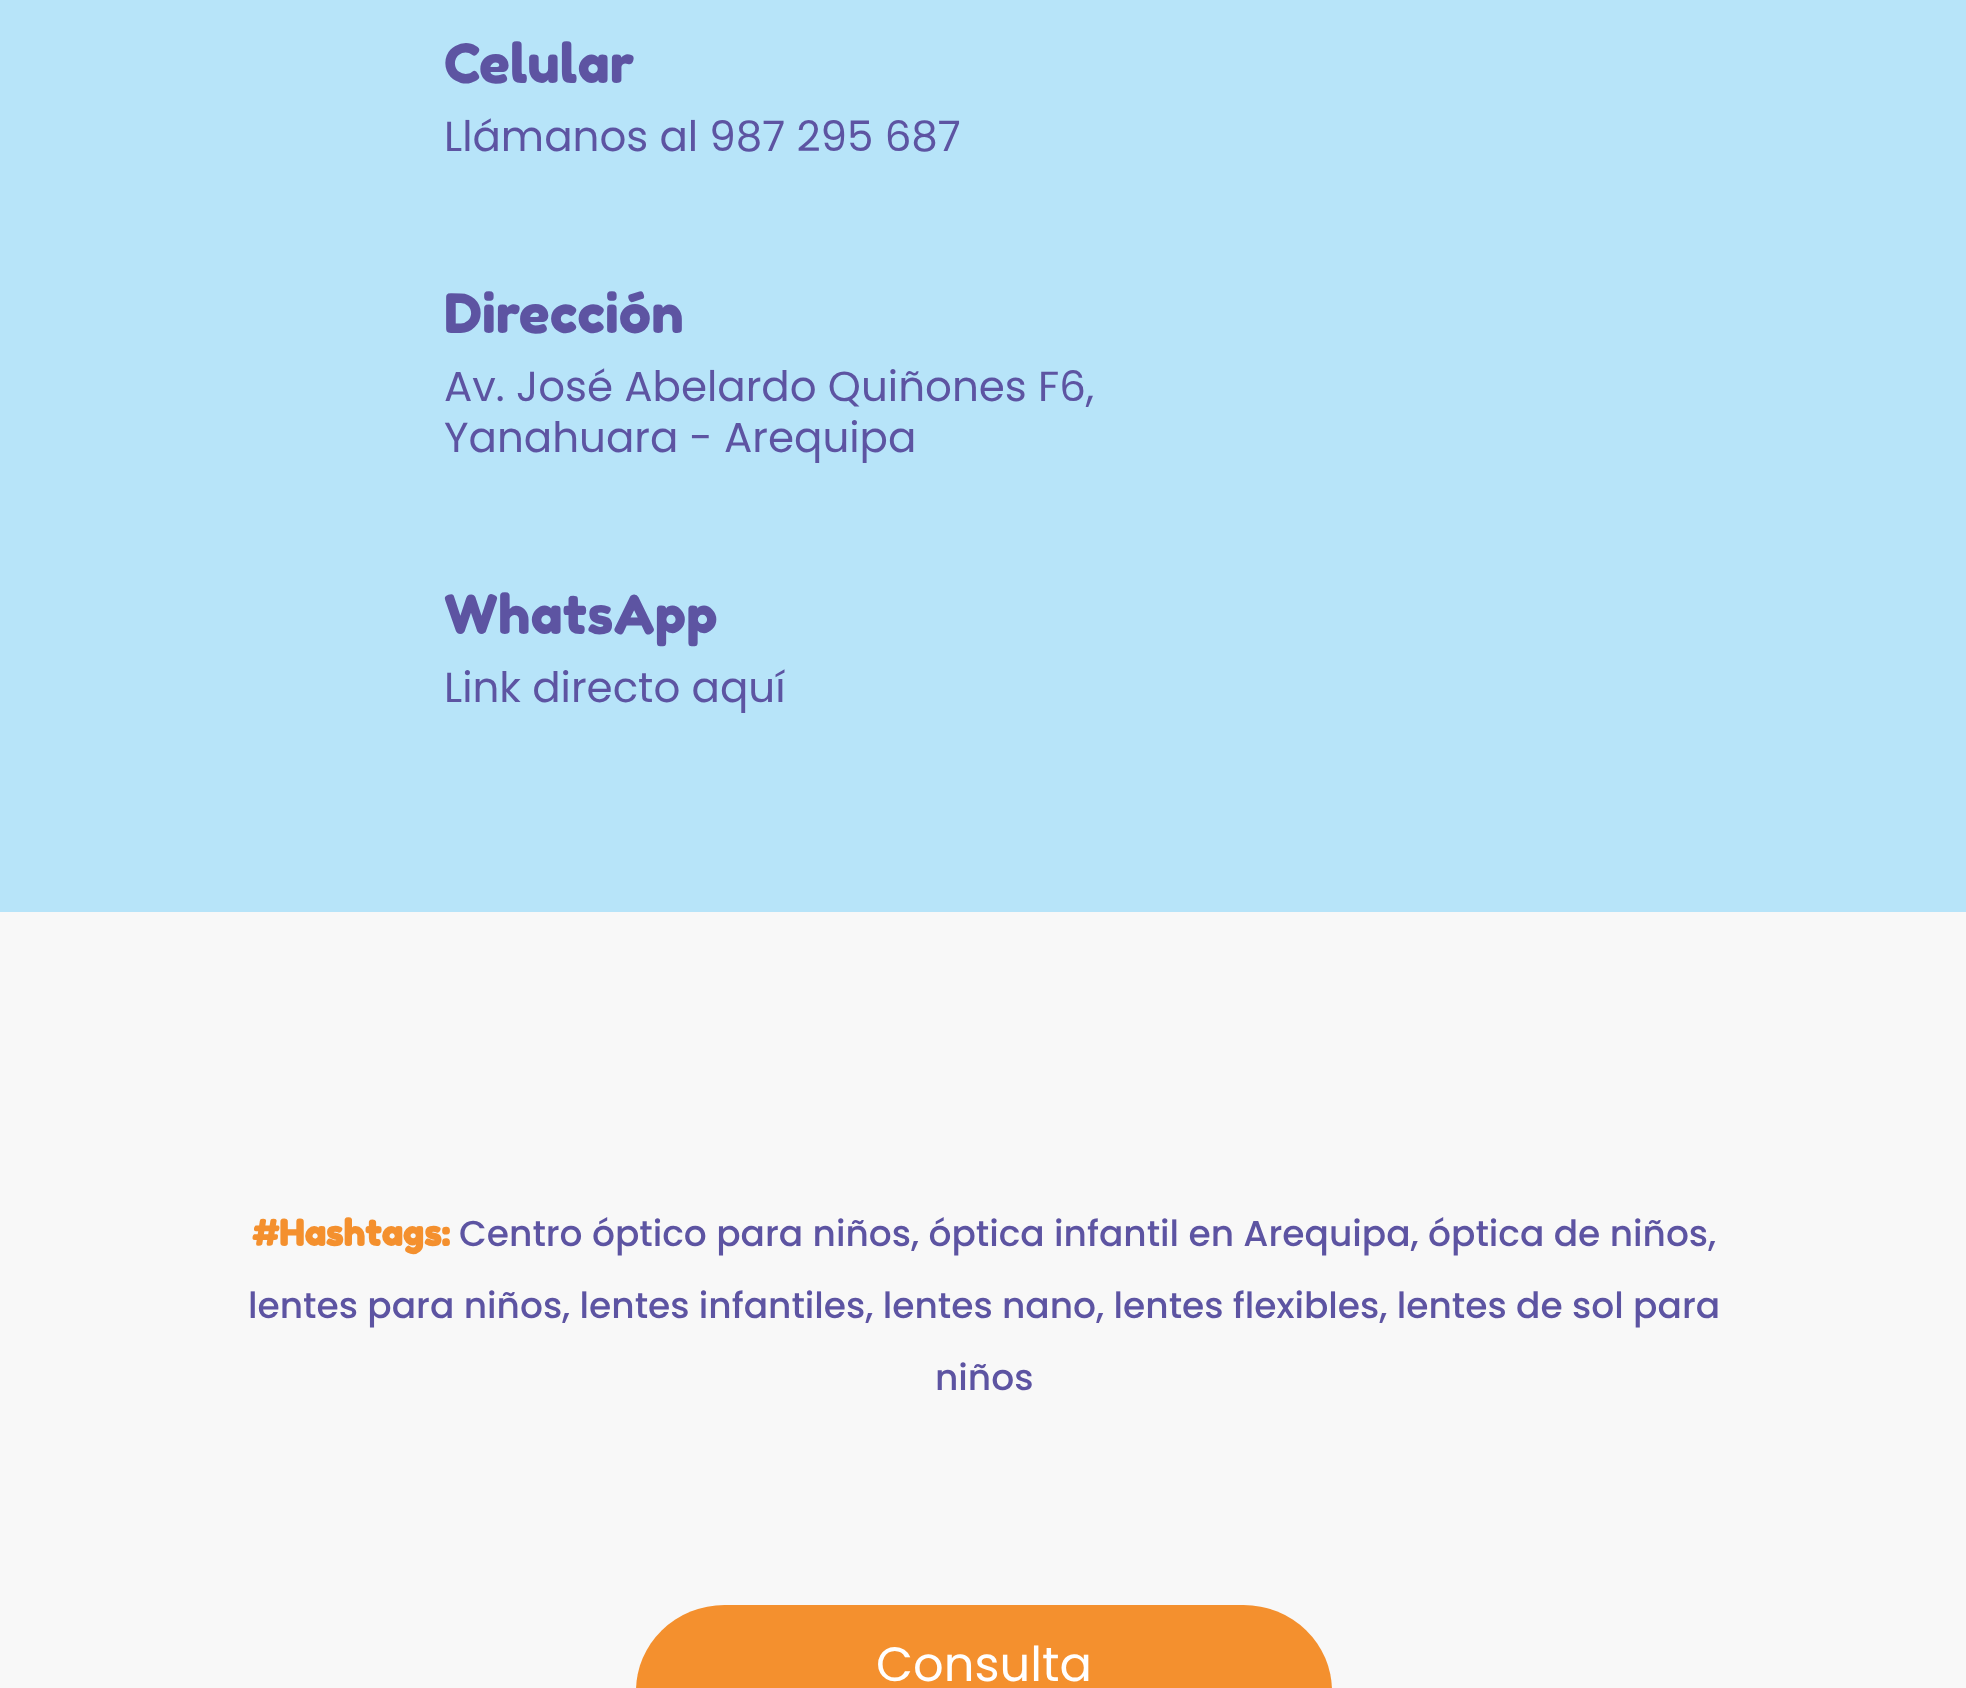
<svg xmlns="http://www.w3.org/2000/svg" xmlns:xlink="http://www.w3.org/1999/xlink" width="1966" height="1688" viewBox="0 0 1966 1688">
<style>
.cls-1{font:54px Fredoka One;fill:#5d54a2}
.cls-2{font:42px Poppins;fill:#5d54a2}
.cls-3{font:bold 36px Fredoka One;fill:#f4902e}
.cls-4{font:500 36px Poppins;fill:#5d54a2}
.cls-5{font:48px Poppins;fill:#ffffff}
</style>
<rect width="100%" height="100%" fill="#b7e4f9"/>
<rect fill="#f8f8f8" x="0" y="912" width="1966" height="776"/>
<rect fill="#f4902e" x="636" y="1605" width="696" height="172" rx="88.5"/>
<text class="cls-1" x="444" y="83">Celular</text>
<text class="cls-2" x="444" y="151">Llámanos al 987 295 687</text>
<text class="cls-1" x="444" y="333">Dirección</text>
<text class="cls-2"><tspan x="444" y="401">Av. José Abelardo Quiñones F6,</tspan><tspan x="444" y="452">Yanahuara - Arequipa</tspan></text>
<text class="cls-1" x="444" y="634">WhatsApp</text>
<text class="cls-2" x="444" y="702">Link directo aquí</text>
<text class="cls-3" x="252" y="1246">#Hashtags:</text>
<text class="cls-4" x="459" y="1246">Centro óptico para niños, óptica infantil en Arequipa, óptica de niños,</text>
<text class="cls-4" x="248" y="1318">lentes para niños, lentes infantiles, lentes nano, lentes flexibles, lentes de sol para</text>
<text class="cls-4" x="935" y="1390">niños</text>
<text class="cls-5" x="876" y="1681">Consulta</text>
</svg>
